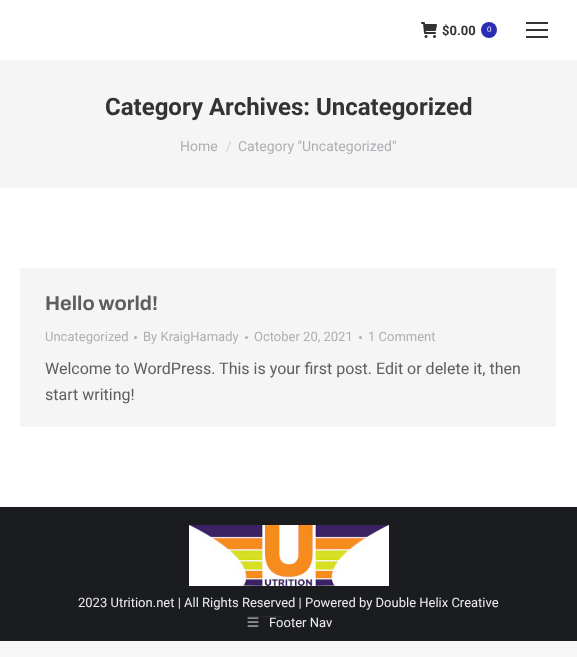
<svg xmlns="http://www.w3.org/2000/svg" xmlns:xlink="http://www.w3.org/1999/xlink" width="577" height="657" viewBox="0 0 577 657">
<style>
.cls-1{font:bold 13px Roboto;fill:#333333}
.cls-2{font:8px Liberation Sans;fill:#ffffff}
.cls-3{font:bold 24px Roboto;fill:#333333}
.cls-4{font:14px Roboto;fill:#adafb3}
.cls-5{font:14px Roboto;fill:#d1d2d4}
.cls-6{font:bold 20px Archivo;fill:#5d5e60}
.cls-7{font:13px Roboto;fill:#adafb3}
.cls-8{font:16px Roboto;fill:#5d5e60}
.cls-9{font:13px Roboto;fill:#eeeeee}
.cls-10{font:15px Roboto;fill:#2c2e32}
</style>
<rect width="100%" height="100%" fill="#f7f7f7"/>
<rect fill="#ffffff" x="0" y="0" width="577" height="507"/>
<image xlink:href="image0.png" x="421" y="22" width="16" height="16"/>
<circle fill="#292eb5" cx="489" cy="30" r="8"/>
<rect fill="#333333" x="526" y="22" width="22" height="2"/>
<rect fill="#333333" x="526" y="29" width="22" height="2"/>
<rect fill="#333333" x="526" y="36" width="22" height="2"/>
<rect fill="#f5f5f5" x="0" y="60" width="577" height="128"/>
<rect fill="#f5f5f5" x="20" y="268" width="536" height="159"/>
<circle fill="#adafb3" cx="135.5" cy="337.5" r="1.5"/>
<circle fill="#adafb3" cx="246.5" cy="337.5" r="1.5"/>
<circle fill="#adafb3" cx="360.5" cy="337.5" r="1.5"/>
<rect fill="#1a1c20" x="0" y="507" width="577" height="134"/>
<image xlink:href="image1.png" x="189" y="525" width="200" height="61"/>
<image xlink:href="image2.png" x="247" y="617" width="12" height="10"/>
<text class="cls-1" x="442" y="35">$0.00</text>
<text class="cls-2" x="487" y="32">0</text>
<text class="cls-3" x="105" y="115">Category Archives: Uncategorized</text>
<text class="cls-4" x="180" y="151">Home</text>
<text class="cls-5" x="226" y="151">/</text>
<text class="cls-4" x="238" y="151">Category "Uncategorized"</text>
<text class="cls-6" x="45" y="310">Hello world!</text>
<text class="cls-7" x="45" y="341">Uncategorized</text>
<text class="cls-7" x="143" y="341">By KraigHamady</text>
<text class="cls-7" x="254" y="341">October 20, 2021</text>
<text class="cls-7" x="368" y="341">1 Comment</text>
<text class="cls-8"><tspan x="45" y="374">Welcome to WordPress. This is your first post. Edit or delete it, then</tspan><tspan x="45" y="400">start writing!</tspan></text>
<text class="cls-9" x="78" y="607">2023 Utrition.net | All Rights Reserved | Powered by Double Helix Creative</text>
<text class="cls-9" x="269" y="627">Footer Nav</text>
<text class="cls-10" x="248" y="622">———</text>
</svg>
